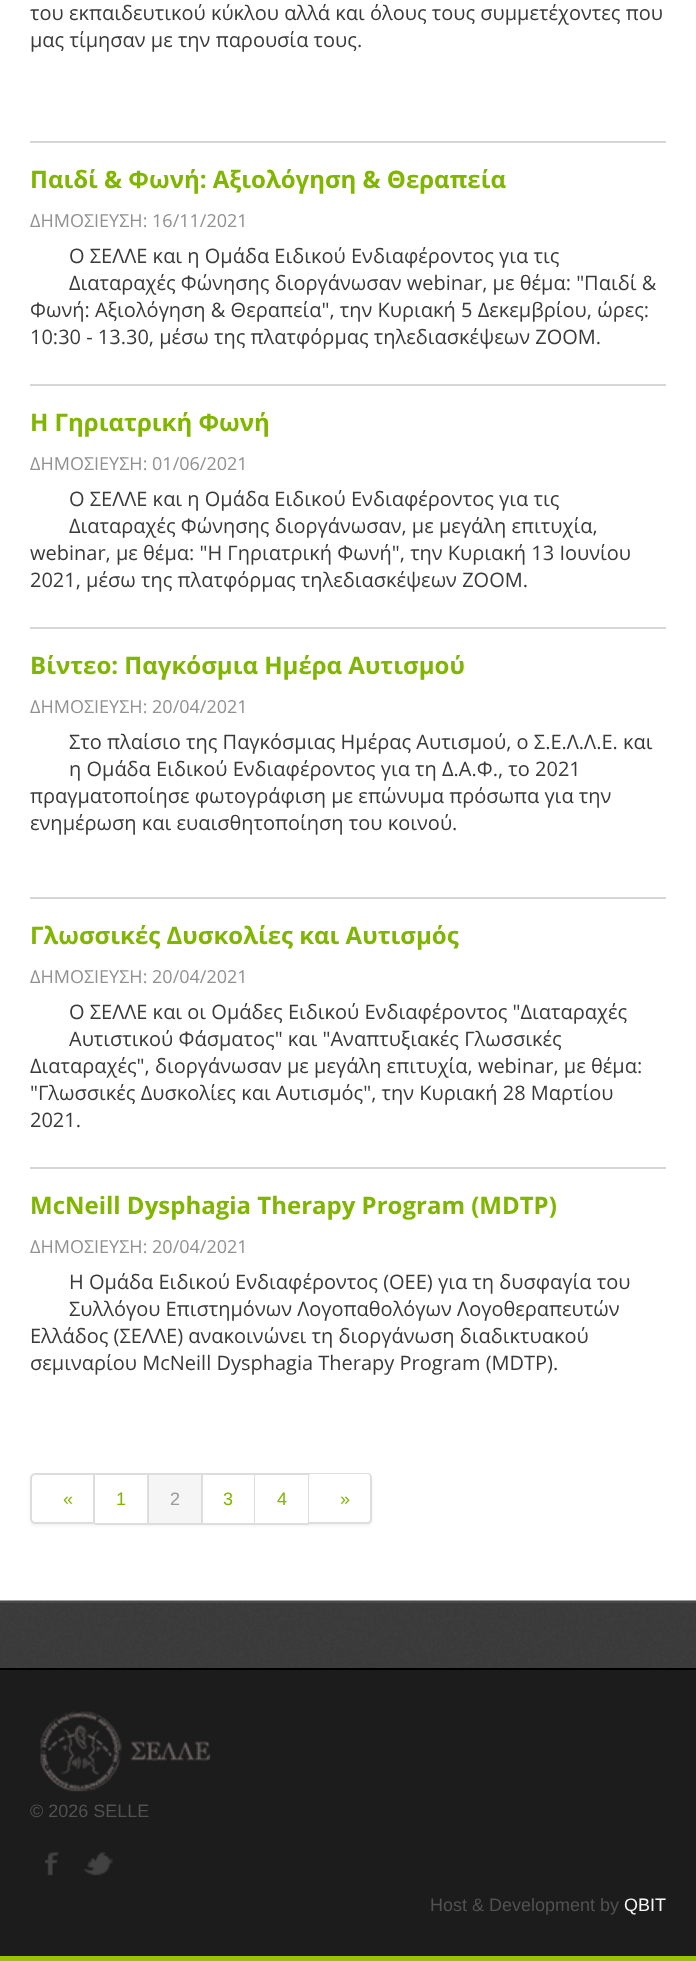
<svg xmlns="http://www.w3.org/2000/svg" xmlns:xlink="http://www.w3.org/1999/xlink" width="696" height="1961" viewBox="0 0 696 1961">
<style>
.cls-1{font:20px Open Sans;fill:#3a3a3a}
.cls-2{font:bold 24px Open Sans;fill:#80b600}
.cls-3{font:18px Open Sans;fill:#919191}
.cls-4{font:18px Liberation Sans;fill:#80b600}
.cls-5{font:18px Liberation Sans;fill:#999999}
.cls-6{font:18px Liberation Sans;fill:#515151}
.cls-7{font:18px Liberation Sans;fill:#f6f6f6}
</style>
<defs>
<clipPath id="clip1"><path d="M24 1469H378V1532H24ZM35 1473H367C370 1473 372 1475 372 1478V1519C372 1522 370 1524 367 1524H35C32 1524 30 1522 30 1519V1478C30 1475 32 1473 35 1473Z" clip-rule="evenodd"/></clipPath>
</defs>
<rect width="100%" height="100%" fill="#ffffff"/>
<rect fill="#d6d6d6" x="30" y="141" width="636" height="2"/>
<rect fill="#d6d6d6" x="30" y="384" width="636" height="2"/>
<rect fill="#d6d6d6" x="30" y="627" width="636" height="2"/>
<rect fill="#d6d6d6" x="30" y="897" width="636" height="2"/>
<rect fill="#d6d6d6" x="30" y="1167" width="636" height="2"/>
<g clip-path="url(#clip1)">
<rect fill="#000000" fill-opacity="0.05" filter="blur(1.5px)" x="30" y="1475" width="342" height="51" rx="5"/>
</g>
<path fill="none" stroke="#dddddd" stroke-width="2" d="M35 1474H94V1523H35C33 1523 31 1521 31 1519V1478C31 1476 33 1474 35 1474Z"/>
<rect fill="#dddddd" x="95" y="1473" width="214" height="2"/>
<rect fill="#dddddd" x="147" y="1473" width="2" height="51"/>
<rect fill="#dddddd" x="95" y="1523" width="54" height="2"/>
<rect fill="#f5f5f5" x="149" y="1475" width="52" height="48"/>
<rect fill="#dddddd" x="201" y="1473" width="2" height="51"/>
<rect fill="#dddddd" x="149" y="1523" width="54" height="2"/>
<rect fill="#dddddd" x="254" y="1473" width="1" height="51"/>
<rect fill="#dddddd" x="203" y="1523" width="52" height="2"/>
<rect fill="#dddddd" x="308" y="1473" width="2" height="51"/>
<rect fill="#dddddd" x="255" y="1523" width="54" height="2"/>
<path fill="#ffffff" d="M309 1475H368C369.5 1475 371 1476.5 371 1478V1520C371 1521.5 369.5 1523 368 1523H309Z"/>
<path fill="#dddddd" fill-rule="evenodd" d="M309 1473H368C370 1473 372 1475 372 1478V1520C372 1522 370 1524 368 1524H309ZM309 1474H368C369 1474 370 1476 370 1478V1520C370 1521 369 1522 368 1522H309Z"/>
<image xlink:href="image0.png" x="0" y="1600" width="696" height="68"/>
<rect fill="#494949" x="0" y="1601" width="696" height="2"/>
<rect fill="#1c1c1c" x="0" y="1670" width="696" height="286"/>
<rect fill="#000000" x="0" y="1668" width="696" height="2"/>
<rect fill="#98c400" x="0" y="1956" width="696" height="5"/>
<image xlink:href="image1.png" x="40" y="1711" width="171" height="81"/>
<image xlink:href="image2.png" x="45" y="1852" width="14" height="24"/>
<image xlink:href="image3.png" x="84" y="1852" width="29" height="24"/>
<text class="cls-1"><tspan x="30" y="20">του εκπαιδευτικού κύκλου αλλά και όλους τους συμμετέχοντες που</tspan><tspan x="30" y="47">μας τίμησαν με την παρουσία τους.</tspan></text>
<text class="cls-2" x="30" y="188">Παιδί &amp; Φωνή: Αξιολόγηση &amp; Θεραπεία</text>
<text class="cls-3" x="30" y="227">ΔΗΜΟΣΙΕΥΣΗ: 16/11/2021</text>
<text class="cls-1"><tspan x="69" y="263">Ο ΣΕΛΛΕ και η Ομάδα Ειδικού Ενδιαφέροντος για τις</tspan><tspan x="69" y="290">Διαταραχές Φώνησης διοργάνωσαν webinar, με θέμα: "Παιδί &amp;</tspan></text>
<text class="cls-1"><tspan x="30" y="317">Φωνή: Αξιολόγηση &amp; Θεραπεία", την Κυριακή 5 Δεκεμβρίου, ώρες:</tspan><tspan x="30" y="344">10:30 - 13.30, μέσω της πλατφόρμας τηλεδιασκέψεων ΖΟΟΜ.</tspan></text>
<text class="cls-2" x="30" y="431">Η Γηριατρική Φωνή</text>
<text class="cls-3" x="30" y="470">ΔΗΜΟΣΙΕΥΣΗ: 01/06/2021</text>
<text class="cls-1"><tspan x="69" y="506">Ο ΣΕΛΛΕ και η Ομάδα Ειδικού Ενδιαφέροντος για τις</tspan><tspan x="69" y="533">Διαταραχές Φώνησης διοργάνωσαν, με μεγάλη επιτυχία,</tspan></text>
<text class="cls-1"><tspan x="30" y="560">webinar, με θέμα: "Η Γηριατρική Φωνή", την Κυριακή 13 Ιουνίου</tspan><tspan x="30" y="587">2021, μέσω της πλατφόρμας τηλεδιασκέψεων ΖΟΟΜ.</tspan></text>
<text class="cls-2" x="30" y="674">Βίντεο: Παγκόσμια Ημέρα Αυτισμού</text>
<text class="cls-3" x="30" y="713">ΔΗΜΟΣΙΕΥΣΗ: 20/04/2021</text>
<text class="cls-1"><tspan x="69" y="749">Στο πλαίσιο της Παγκόσμιας Ημέρας Αυτισμού, ο Σ.Ε.Λ.Λ.Ε. και</tspan><tspan x="69" y="776">η Ομάδα Ειδικού Ενδιαφέροντος για τη Δ.Α.Φ., το 2021</tspan></text>
<text class="cls-1"><tspan x="30" y="803">πραγματοποίησε φωτογράφιση με επώνυμα πρόσωπα για την</tspan><tspan x="30" y="830">ενημέρωση και ευαισθητοποίηση του κοινού.</tspan></text>
<text class="cls-2" x="30" y="944">Γλωσσικές Δυσκολίες και Αυτισμός</text>
<text class="cls-3" x="30" y="983">ΔΗΜΟΣΙΕΥΣΗ: 20/04/2021</text>
<text class="cls-1"><tspan x="69" y="1019">Ο ΣΕΛΛΕ και οι Ομάδες Ειδικού Ενδιαφέροντος "Διαταραχές</tspan><tspan x="69" y="1046">Αυτιστικού Φάσματος" και "Αναπτυξιακές Γλωσσικές</tspan></text>
<text class="cls-1"><tspan x="30" y="1073">Διαταραχές", διοργάνωσαν με μεγάλη επιτυχία, webinar, με θέμα:</tspan><tspan x="30" y="1100">"Γλωσσικές Δυσκολίες και Αυτισμός", την Κυριακή 28 Μαρτίου</tspan><tspan x="30" y="1127">2021.</tspan></text>
<text class="cls-2" x="30" y="1214">McNeill Dysphagia Therapy Program (MDTP)</text>
<text class="cls-3" x="30" y="1253">ΔΗΜΟΣΙΕΥΣΗ: 20/04/2021</text>
<text class="cls-1"><tspan x="69" y="1289">Η Ομάδα Ειδικού Ενδιαφέροντος (ΟΕΕ) για τη δυσφαγία του</tspan><tspan x="69" y="1316">Συλλόγου Επιστημόνων Λογοπαθολόγων Λογοθεραπευτών</tspan></text>
<text class="cls-1"><tspan x="30" y="1343">Ελλάδος (ΣΕΛΛΕ) ανακοινώνει τη διοργάνωση διαδικτυακού</tspan><tspan x="30" y="1370">σεμιναρίου McNeill Dysphagia Therapy Program (MDTP).</tspan></text>
<text class="cls-4" x="63" y="1505">«</text>
<text class="cls-4" x="116" y="1505">1</text>
<text class="cls-5" x="170" y="1505">2</text>
<text class="cls-4" x="223" y="1505">3</text>
<text class="cls-4" x="277" y="1505">4</text>
<text class="cls-4" x="340" y="1505">»</text>
<text class="cls-6" x="30" y="1817">© 2026 SELLE</text>
<text class="cls-6" x="430" y="1911">Host &amp; Development by</text>
<text class="cls-7" x="624" y="1911">QBIT</text>
</svg>
